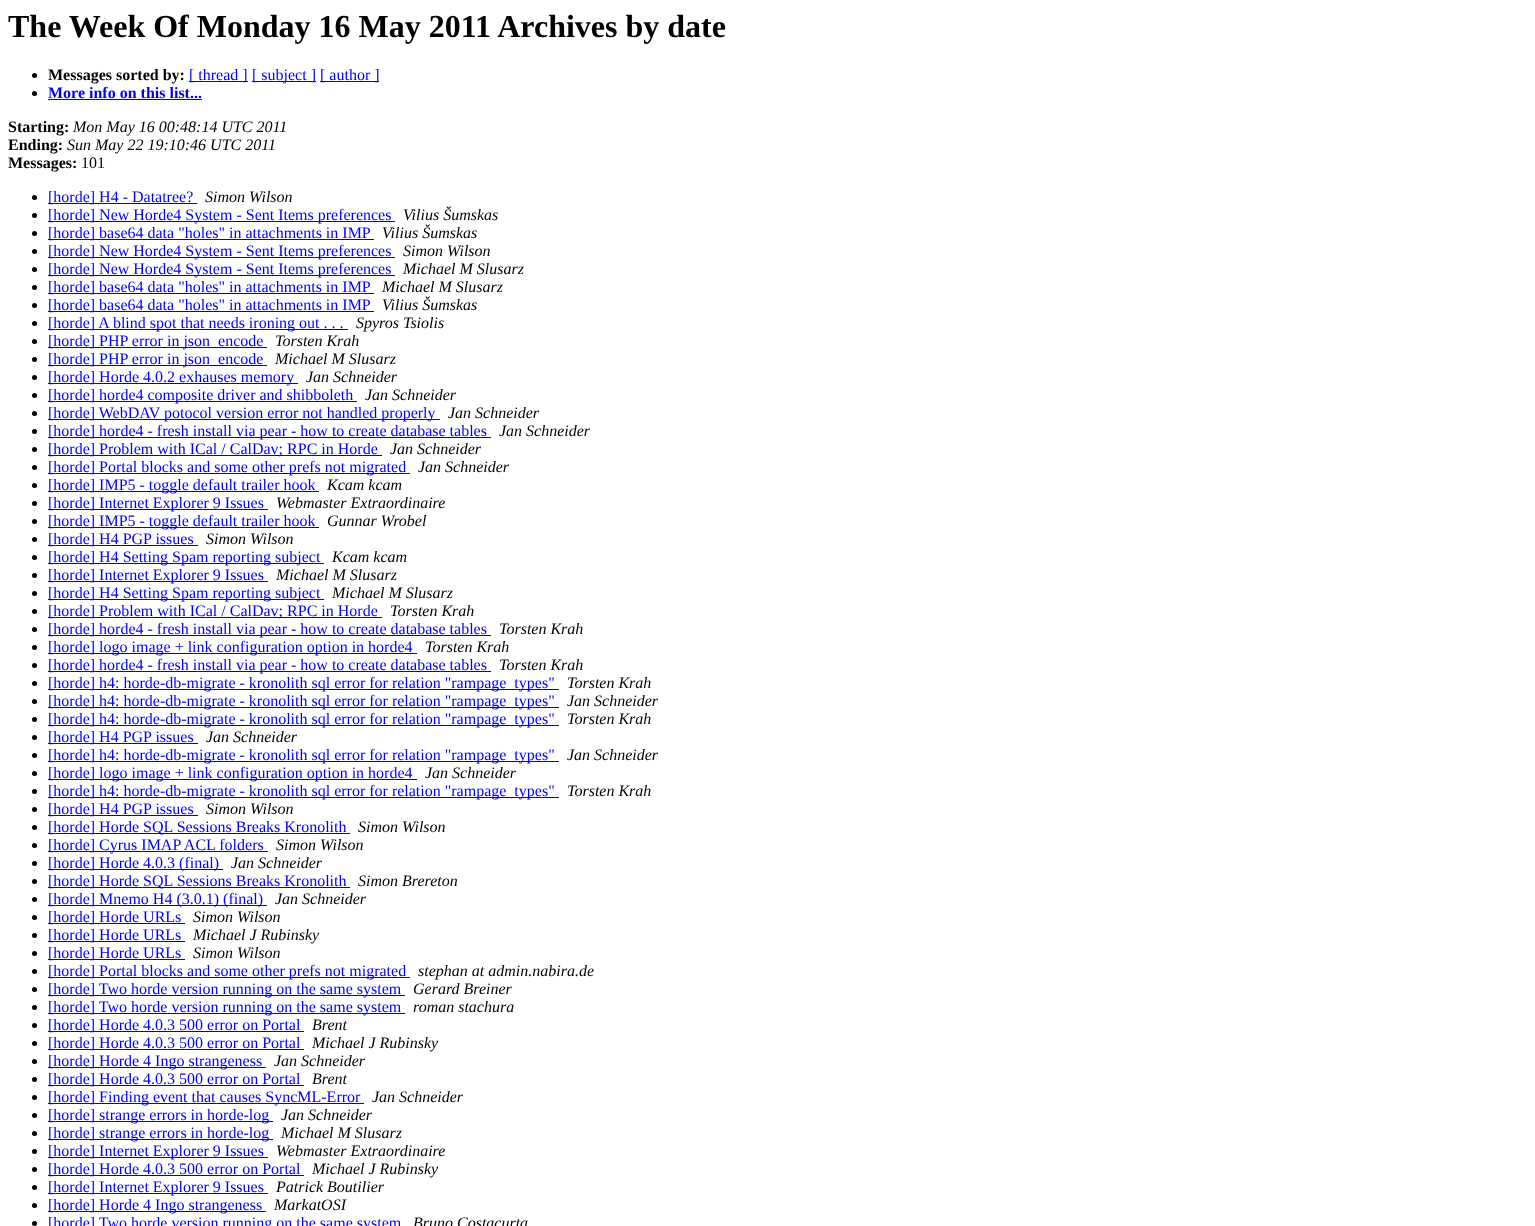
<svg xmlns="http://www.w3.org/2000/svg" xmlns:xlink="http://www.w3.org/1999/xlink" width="1535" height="1226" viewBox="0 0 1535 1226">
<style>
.cls-1{font:bold 32px Liberation Serif;fill:#000000}
.cls-2{font:bold 16px Liberation Serif;fill:#000000}
.cls-3{font:16px Liberation Serif;fill:#0000ee}
.cls-4{font:bold 16px Liberation Serif;fill:#0000ee}
.cls-5{font:italic 16px Liberation Serif;fill:#000000}
.cls-6{font:16px Liberation Serif;fill:#000000}
</style>
<rect width="100%" height="100%" fill="#ffffff"/>
<circle fill="#000000" cx="34.5" cy="75.5" r="2.5"/>
<rect fill="#0000ee" x="189" y="81" width="59" height="1"/>
<rect fill="#0000ee" x="252" y="81" width="64" height="1"/>
<rect fill="#0000ee" x="320" y="81" width="59" height="1"/>
<circle fill="#000000" cx="34.5" cy="93.5" r="2.5"/>
<rect fill="#0000ee" x="48" y="99" width="154" height="1"/>
<circle fill="#000000" cx="34.5" cy="197.5" r="2.5"/>
<rect fill="#0000ee" x="48" y="203" width="149" height="1"/>
<circle fill="#000000" cx="34.5" cy="215.5" r="2.5"/>
<rect fill="#0000ee" x="48" y="221" width="347" height="1"/>
<circle fill="#000000" cx="34.5" cy="233.5" r="2.5"/>
<rect fill="#0000ee" x="48" y="239" width="326" height="1"/>
<circle fill="#000000" cx="34.5" cy="251.5" r="2.5"/>
<rect fill="#0000ee" x="48" y="257" width="347" height="1"/>
<circle fill="#000000" cx="34.5" cy="269.5" r="2.5"/>
<rect fill="#0000ee" x="48" y="275" width="347" height="1"/>
<circle fill="#000000" cx="34.5" cy="287.5" r="2.5"/>
<rect fill="#0000ee" x="48" y="293" width="326" height="1"/>
<circle fill="#000000" cx="34.5" cy="305.5" r="2.5"/>
<rect fill="#0000ee" x="48" y="311" width="326" height="1"/>
<circle fill="#000000" cx="34.5" cy="323.5" r="2.5"/>
<rect fill="#0000ee" x="48" y="329" width="300" height="1"/>
<circle fill="#000000" cx="34.5" cy="341.5" r="2.5"/>
<rect fill="#0000ee" x="48" y="347" width="219" height="1"/>
<circle fill="#000000" cx="34.5" cy="359.5" r="2.5"/>
<rect fill="#0000ee" x="48" y="365" width="219" height="1"/>
<circle fill="#000000" cx="34.5" cy="377.5" r="2.5"/>
<rect fill="#0000ee" x="48" y="383" width="250" height="1"/>
<circle fill="#000000" cx="34.5" cy="395.5" r="2.5"/>
<rect fill="#0000ee" x="48" y="401" width="309" height="1"/>
<circle fill="#000000" cx="34.5" cy="413.5" r="2.5"/>
<rect fill="#0000ee" x="48" y="419" width="392" height="1"/>
<circle fill="#000000" cx="34.5" cy="431.5" r="2.5"/>
<rect fill="#0000ee" x="48" y="437" width="443" height="1"/>
<circle fill="#000000" cx="34.5" cy="449.5" r="2.5"/>
<rect fill="#0000ee" x="48" y="455" width="334" height="1"/>
<circle fill="#000000" cx="34.5" cy="467.5" r="2.5"/>
<rect fill="#0000ee" x="48" y="473" width="362" height="1"/>
<circle fill="#000000" cx="34.5" cy="485.5" r="2.5"/>
<rect fill="#0000ee" x="48" y="491" width="271" height="1"/>
<circle fill="#000000" cx="34.5" cy="503.5" r="2.5"/>
<rect fill="#0000ee" x="48" y="509" width="220" height="1"/>
<circle fill="#000000" cx="34.5" cy="521.5" r="2.5"/>
<rect fill="#0000ee" x="48" y="527" width="271" height="1"/>
<circle fill="#000000" cx="34.5" cy="539.5" r="2.5"/>
<rect fill="#0000ee" x="48" y="545" width="150" height="1"/>
<circle fill="#000000" cx="34.5" cy="557.5" r="2.5"/>
<rect fill="#0000ee" x="48" y="563" width="276" height="1"/>
<circle fill="#000000" cx="34.5" cy="575.5" r="2.5"/>
<rect fill="#0000ee" x="48" y="581" width="220" height="1"/>
<circle fill="#000000" cx="34.5" cy="593.5" r="2.5"/>
<rect fill="#0000ee" x="48" y="599" width="276" height="1"/>
<circle fill="#000000" cx="34.5" cy="611.5" r="2.5"/>
<rect fill="#0000ee" x="48" y="617" width="334" height="1"/>
<circle fill="#000000" cx="34.5" cy="629.5" r="2.5"/>
<rect fill="#0000ee" x="48" y="635" width="443" height="1"/>
<circle fill="#000000" cx="34.5" cy="647.5" r="2.5"/>
<rect fill="#0000ee" x="48" y="653" width="369" height="1"/>
<circle fill="#000000" cx="34.5" cy="665.5" r="2.5"/>
<rect fill="#0000ee" x="48" y="671" width="443" height="1"/>
<circle fill="#000000" cx="34.5" cy="683.5" r="2.5"/>
<rect fill="#0000ee" x="48" y="689" width="511" height="1"/>
<circle fill="#000000" cx="34.5" cy="701.5" r="2.5"/>
<rect fill="#0000ee" x="48" y="707" width="511" height="1"/>
<circle fill="#000000" cx="34.5" cy="719.5" r="2.5"/>
<rect fill="#0000ee" x="48" y="725" width="511" height="1"/>
<circle fill="#000000" cx="34.5" cy="737.5" r="2.5"/>
<rect fill="#0000ee" x="48" y="743" width="150" height="1"/>
<circle fill="#000000" cx="34.5" cy="755.5" r="2.5"/>
<rect fill="#0000ee" x="48" y="761" width="511" height="1"/>
<circle fill="#000000" cx="34.5" cy="773.5" r="2.5"/>
<rect fill="#0000ee" x="48" y="779" width="369" height="1"/>
<circle fill="#000000" cx="34.5" cy="791.5" r="2.5"/>
<rect fill="#0000ee" x="48" y="797" width="511" height="1"/>
<circle fill="#000000" cx="34.5" cy="809.5" r="2.5"/>
<rect fill="#0000ee" x="48" y="815" width="150" height="1"/>
<circle fill="#000000" cx="34.5" cy="827.5" r="2.5"/>
<rect fill="#0000ee" x="48" y="833" width="302" height="1"/>
<circle fill="#000000" cx="34.5" cy="845.5" r="2.5"/>
<rect fill="#0000ee" x="48" y="851" width="220" height="1"/>
<circle fill="#000000" cx="34.5" cy="863.5" r="2.5"/>
<rect fill="#0000ee" x="48" y="869" width="175" height="1"/>
<circle fill="#000000" cx="34.5" cy="881.5" r="2.5"/>
<rect fill="#0000ee" x="48" y="887" width="302" height="1"/>
<circle fill="#000000" cx="34.5" cy="899.5" r="2.5"/>
<rect fill="#0000ee" x="48" y="905" width="219" height="1"/>
<circle fill="#000000" cx="34.5" cy="917.5" r="2.5"/>
<rect fill="#0000ee" x="48" y="923" width="137" height="1"/>
<circle fill="#000000" cx="34.5" cy="935.5" r="2.5"/>
<rect fill="#0000ee" x="48" y="941" width="137" height="1"/>
<circle fill="#000000" cx="34.5" cy="953.5" r="2.5"/>
<rect fill="#0000ee" x="48" y="959" width="137" height="1"/>
<circle fill="#000000" cx="34.5" cy="971.5" r="2.5"/>
<rect fill="#0000ee" x="48" y="977" width="362" height="1"/>
<circle fill="#000000" cx="34.5" cy="989.5" r="2.5"/>
<rect fill="#0000ee" x="48" y="995" width="357" height="1"/>
<circle fill="#000000" cx="34.5" cy="1007.5" r="2.5"/>
<rect fill="#0000ee" x="48" y="1013" width="357" height="1"/>
<circle fill="#000000" cx="34.5" cy="1025.5" r="2.5"/>
<rect fill="#0000ee" x="48" y="1031" width="256" height="1"/>
<circle fill="#000000" cx="34.5" cy="1043.5" r="2.5"/>
<rect fill="#0000ee" x="48" y="1049" width="256" height="1"/>
<circle fill="#000000" cx="34.5" cy="1061.5" r="2.5"/>
<rect fill="#0000ee" x="48" y="1067" width="218" height="1"/>
<circle fill="#000000" cx="34.5" cy="1079.5" r="2.5"/>
<rect fill="#0000ee" x="48" y="1085" width="256" height="1"/>
<circle fill="#000000" cx="34.5" cy="1097.5" r="2.5"/>
<rect fill="#0000ee" x="48" y="1103" width="316" height="1"/>
<circle fill="#000000" cx="34.5" cy="1115.5" r="2.5"/>
<rect fill="#0000ee" x="48" y="1121" width="225" height="1"/>
<circle fill="#000000" cx="34.5" cy="1133.5" r="2.5"/>
<rect fill="#0000ee" x="48" y="1139" width="225" height="1"/>
<circle fill="#000000" cx="34.5" cy="1151.5" r="2.5"/>
<rect fill="#0000ee" x="48" y="1157" width="220" height="1"/>
<circle fill="#000000" cx="34.5" cy="1169.5" r="2.5"/>
<rect fill="#0000ee" x="48" y="1175" width="256" height="1"/>
<circle fill="#000000" cx="34.5" cy="1187.5" r="2.5"/>
<rect fill="#0000ee" x="48" y="1193" width="220" height="1"/>
<circle fill="#000000" cx="34.5" cy="1205.5" r="2.5"/>
<rect fill="#0000ee" x="48" y="1211" width="218" height="1"/>
<circle fill="#000000" cx="34.5" cy="1223.5" r="2.5"/>
<text class="cls-1" x="8" y="37">The Week Of Monday 16 May 2011 Archives by date</text>
<text class="cls-2" x="48" y="80">Messages sorted by:</text>
<text class="cls-3" x="189" y="80">[ thread ]</text>
<text class="cls-3" x="252" y="80">[ subject ]</text>
<text class="cls-3" x="320" y="80">[ author ]</text>
<text class="cls-4" x="48" y="98">More info on this list...</text>
<text class="cls-2" x="8" y="132">Starting:</text>
<text class="cls-5" x="73" y="132">Mon May 16 00:48:14 UTC 2011</text>
<text class="cls-2" x="8" y="150">Ending:</text>
<text class="cls-5" x="67" y="150">Sun May 22 19:10:46 UTC 2011</text>
<text class="cls-2" x="8" y="168">Messages:</text>
<text class="cls-6" x="81" y="168">101</text>
<text class="cls-3" x="48" y="202">[horde] H4 - Datatree?</text>
<text class="cls-5" x="205" y="202">Simon Wilson</text>
<text class="cls-3" x="48" y="220">[horde] New Horde4 System - Sent Items preferences</text>
<text class="cls-5" x="403" y="220">Vilius Šumskas</text>
<text class="cls-3" x="48" y="238">[horde] base64 data "holes" in attachments in IMP</text>
<text class="cls-5" x="382" y="238">Vilius Šumskas</text>
<text class="cls-3" x="48" y="256">[horde] New Horde4 System - Sent Items preferences</text>
<text class="cls-5" x="403" y="256">Simon Wilson</text>
<text class="cls-3" x="48" y="274">[horde] New Horde4 System - Sent Items preferences</text>
<text class="cls-5" x="403" y="274">Michael M Slusarz</text>
<text class="cls-3" x="48" y="292">[horde] base64 data "holes" in attachments in IMP</text>
<text class="cls-5" x="382" y="292">Michael M Slusarz</text>
<text class="cls-3" x="48" y="310">[horde] base64 data "holes" in attachments in IMP</text>
<text class="cls-5" x="382" y="310">Vilius Šumskas</text>
<text class="cls-3" x="48" y="328">[horde] A blind spot that needs ironing out . . .</text>
<text class="cls-5" x="356" y="328">Spyros Tsiolis</text>
<text class="cls-3" x="48" y="346">[horde] PHP error in json_encode</text>
<text class="cls-5" x="275" y="346">Torsten Krah</text>
<text class="cls-3" x="48" y="364">[horde] PHP error in json_encode</text>
<text class="cls-5" x="275" y="364">Michael M Slusarz</text>
<text class="cls-3" x="48" y="382">[horde] Horde 4.0.2 exhauses memory</text>
<text class="cls-5" x="306" y="382">Jan Schneider</text>
<text class="cls-3" x="48" y="400">[horde] horde4 composite driver and shibboleth</text>
<text class="cls-5" x="365" y="400">Jan Schneider</text>
<text class="cls-3" x="48" y="418">[horde] WebDAV potocol version error not handled properly</text>
<text class="cls-5" x="448" y="418">Jan Schneider</text>
<text class="cls-3" x="48" y="436">[horde] horde4 - fresh install via pear - how to create database tables</text>
<text class="cls-5" x="499" y="436">Jan Schneider</text>
<text class="cls-3" x="48" y="454">[horde] Problem with ICal / CalDav; RPC in Horde</text>
<text class="cls-5" x="390" y="454">Jan Schneider</text>
<text class="cls-3" x="48" y="472">[horde] Portal blocks and some other prefs not migrated</text>
<text class="cls-5" x="418" y="472">Jan Schneider</text>
<text class="cls-3" x="48" y="490">[horde] IMP5 - toggle default trailer hook</text>
<text class="cls-5" x="327" y="490">Kcam kcam</text>
<text class="cls-3" x="48" y="508">[horde] Internet Explorer 9 Issues</text>
<text class="cls-5" x="276" y="508">Webmaster Extraordinaire</text>
<text class="cls-3" x="48" y="526">[horde] IMP5 - toggle default trailer hook</text>
<text class="cls-5" x="327" y="526">Gunnar Wrobel</text>
<text class="cls-3" x="48" y="544">[horde] H4 PGP issues</text>
<text class="cls-5" x="206" y="544">Simon Wilson</text>
<text class="cls-3" x="48" y="562">[horde] H4 Setting Spam reporting subject</text>
<text class="cls-5" x="332" y="562">Kcam kcam</text>
<text class="cls-3" x="48" y="580">[horde] Internet Explorer 9 Issues</text>
<text class="cls-5" x="276" y="580">Michael M Slusarz</text>
<text class="cls-3" x="48" y="598">[horde] H4 Setting Spam reporting subject</text>
<text class="cls-5" x="332" y="598">Michael M Slusarz</text>
<text class="cls-3" x="48" y="616">[horde] Problem with ICal / CalDav; RPC in Horde</text>
<text class="cls-5" x="390" y="616">Torsten Krah</text>
<text class="cls-3" x="48" y="634">[horde] horde4 - fresh install via pear - how to create database tables</text>
<text class="cls-5" x="499" y="634">Torsten Krah</text>
<text class="cls-3" x="48" y="652">[horde] logo image + link configuration option in horde4</text>
<text class="cls-5" x="425" y="652">Torsten Krah</text>
<text class="cls-3" x="48" y="670">[horde] horde4 - fresh install via pear - how to create database tables</text>
<text class="cls-5" x="499" y="670">Torsten Krah</text>
<text class="cls-3" x="48" y="688">[horde] h4: horde-db-migrate - kronolith sql error for relation "rampage_types"</text>
<text class="cls-5" x="567" y="688">Torsten Krah</text>
<text class="cls-3" x="48" y="706">[horde] h4: horde-db-migrate - kronolith sql error for relation "rampage_types"</text>
<text class="cls-5" x="567" y="706">Jan Schneider</text>
<text class="cls-3" x="48" y="724">[horde] h4: horde-db-migrate - kronolith sql error for relation "rampage_types"</text>
<text class="cls-5" x="567" y="724">Torsten Krah</text>
<text class="cls-3" x="48" y="742">[horde] H4 PGP issues</text>
<text class="cls-5" x="206" y="742">Jan Schneider</text>
<text class="cls-3" x="48" y="760">[horde] h4: horde-db-migrate - kronolith sql error for relation "rampage_types"</text>
<text class="cls-5" x="567" y="760">Jan Schneider</text>
<text class="cls-3" x="48" y="778">[horde] logo image + link configuration option in horde4</text>
<text class="cls-5" x="425" y="778">Jan Schneider</text>
<text class="cls-3" x="48" y="796">[horde] h4: horde-db-migrate - kronolith sql error for relation "rampage_types"</text>
<text class="cls-5" x="567" y="796">Torsten Krah</text>
<text class="cls-3" x="48" y="814">[horde] H4 PGP issues</text>
<text class="cls-5" x="206" y="814">Simon Wilson</text>
<text class="cls-3" x="48" y="832">[horde] Horde SQL Sessions Breaks Kronolith</text>
<text class="cls-5" x="358" y="832">Simon Wilson</text>
<text class="cls-3" x="48" y="850">[horde] Cyrus IMAP ACL folders</text>
<text class="cls-5" x="276" y="850">Simon Wilson</text>
<text class="cls-3" x="48" y="868">[horde] Horde 4.0.3 (final)</text>
<text class="cls-5" x="231" y="868">Jan Schneider</text>
<text class="cls-3" x="48" y="886">[horde] Horde SQL Sessions Breaks Kronolith</text>
<text class="cls-5" x="358" y="886">Simon Brereton</text>
<text class="cls-3" x="48" y="904">[horde] Mnemo H4 (3.0.1) (final)</text>
<text class="cls-5" x="275" y="904">Jan Schneider</text>
<text class="cls-3" x="48" y="922">[horde] Horde URLs</text>
<text class="cls-5" x="193" y="922">Simon Wilson</text>
<text class="cls-3" x="48" y="940">[horde] Horde URLs</text>
<text class="cls-5" x="193" y="940">Michael J Rubinsky</text>
<text class="cls-3" x="48" y="958">[horde] Horde URLs</text>
<text class="cls-5" x="193" y="958">Simon Wilson</text>
<text class="cls-3" x="48" y="976">[horde] Portal blocks and some other prefs not migrated</text>
<text class="cls-5" x="418" y="976">stephan at admin.nabira.de</text>
<text class="cls-3" x="48" y="994">[horde] Two horde version running on the same system</text>
<text class="cls-5" x="413" y="994">Gerard Breiner</text>
<text class="cls-3" x="48" y="1012">[horde] Two horde version running on the same system</text>
<text class="cls-5" x="413" y="1012">roman stachura</text>
<text class="cls-3" x="48" y="1030">[horde] Horde 4.0.3 500 error on Portal</text>
<text class="cls-5" x="312" y="1030">Brent</text>
<text class="cls-3" x="48" y="1048">[horde] Horde 4.0.3 500 error on Portal</text>
<text class="cls-5" x="312" y="1048">Michael J Rubinsky</text>
<text class="cls-3" x="48" y="1066">[horde] Horde 4 Ingo strangeness</text>
<text class="cls-5" x="274" y="1066">Jan Schneider</text>
<text class="cls-3" x="48" y="1084">[horde] Horde 4.0.3 500 error on Portal</text>
<text class="cls-5" x="312" y="1084">Brent</text>
<text class="cls-3" x="48" y="1102">[horde] Finding event that causes SyncML-Error</text>
<text class="cls-5" x="372" y="1102">Jan Schneider</text>
<text class="cls-3" x="48" y="1120">[horde] strange errors in horde-log</text>
<text class="cls-5" x="281" y="1120">Jan Schneider</text>
<text class="cls-3" x="48" y="1138">[horde] strange errors in horde-log</text>
<text class="cls-5" x="281" y="1138">Michael M Slusarz</text>
<text class="cls-3" x="48" y="1156">[horde] Internet Explorer 9 Issues</text>
<text class="cls-5" x="276" y="1156">Webmaster Extraordinaire</text>
<text class="cls-3" x="48" y="1174">[horde] Horde 4.0.3 500 error on Portal</text>
<text class="cls-5" x="312" y="1174">Michael J Rubinsky</text>
<text class="cls-3" x="48" y="1192">[horde] Internet Explorer 9 Issues</text>
<text class="cls-5" x="276" y="1192">Patrick Boutilier</text>
<text class="cls-3" x="48" y="1210">[horde] Horde 4 Ingo strangeness</text>
<text class="cls-5" x="274" y="1210">MarkatOSI</text>
<text class="cls-3" x="48" y="1228">[horde] Two horde version running on the same system</text>
<text class="cls-5" x="413" y="1228">Bruno Costacurta</text>
</svg>
